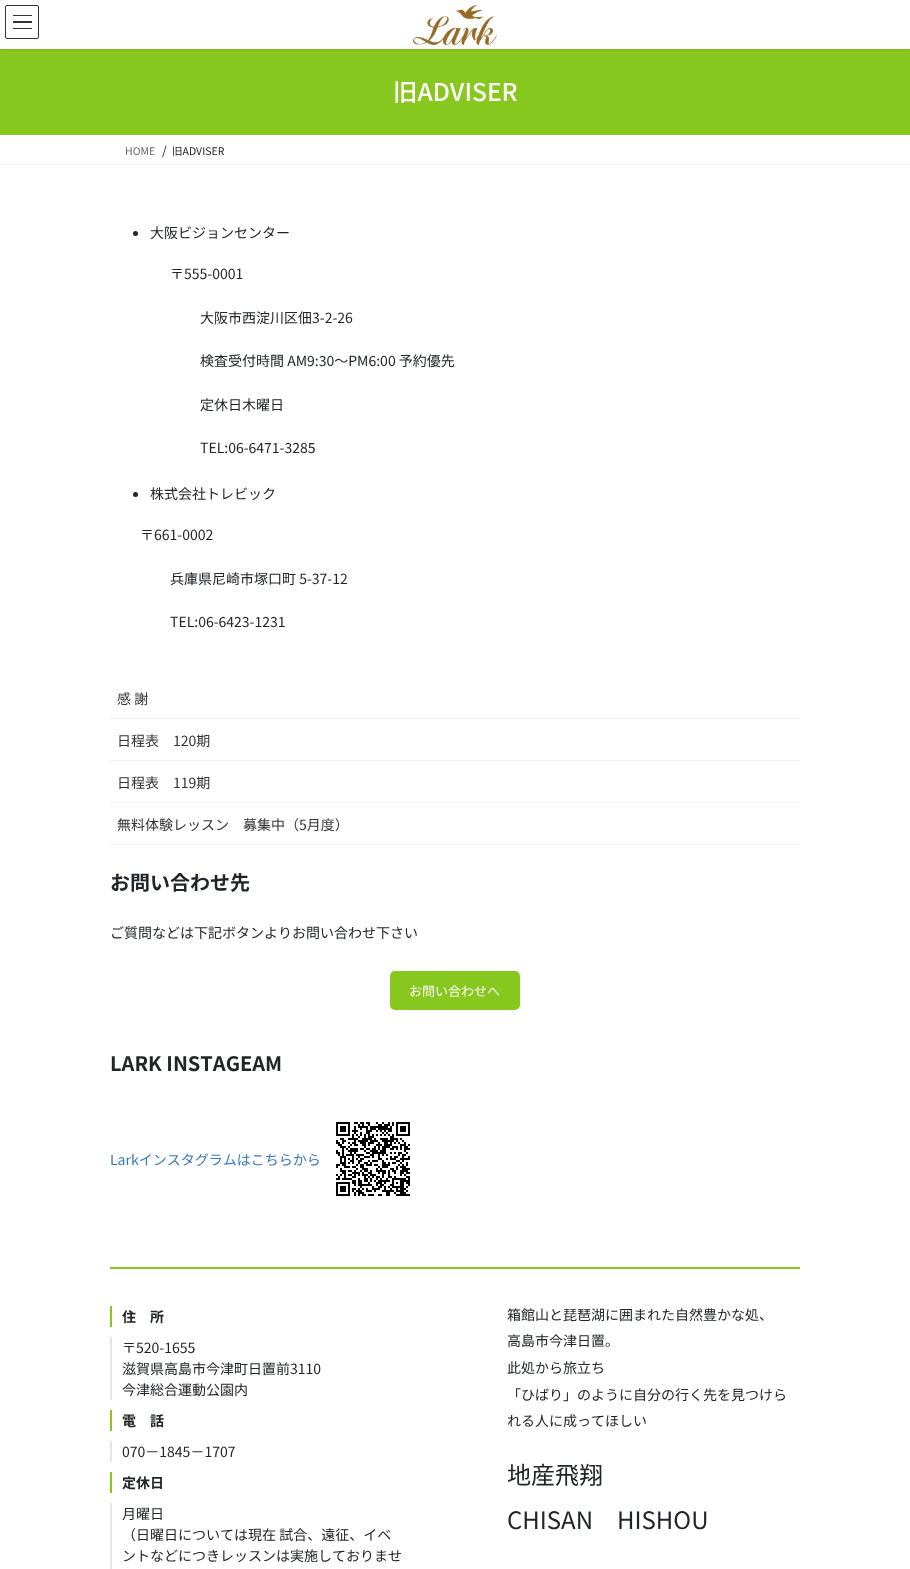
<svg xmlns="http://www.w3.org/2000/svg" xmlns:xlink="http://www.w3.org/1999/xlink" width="910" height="1569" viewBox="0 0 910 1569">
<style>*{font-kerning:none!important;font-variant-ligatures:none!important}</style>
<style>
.cls-1{font:500 24.5px Noto Sans JP;fill:#ffffff}
.cls-2{font:10.5px Noto Sans JP;fill:#666666}
.cls-3{font:12px Noto Sans JP;fill:#212529}
.cls-4{font:10.5px Noto Sans JP;fill:#212529}
.cls-5{font:14px Noto Sans JP;fill:#212529}
.cls-6{font:14px Noto Sans JP;fill:#333333}
.cls-7{font:bold 20px Noto Sans JP;fill:#212529}
.cls-8{font:13px Noto Sans JP;fill:#ffffff}
.cls-9{font:14px Noto Sans JP;fill:#337ab7}
.cls-10{font:bold 14px Noto Sans JP;fill:#212529}
.cls-11{font:24px Noto Sans JP;fill:#212529}
</style>
<defs>
<clipPath id="clip1"><rect x="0" y="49" width="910" height="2"/></clipPath>
</defs>
<rect width="100%" height="100%" fill="#ffffff"/>
<rect fill="#88c71e" x="0" y="49" width="910" height="86"/>
<g clip-path="url(#clip1)">
<rect fill="#000000" fill-opacity="0.1" filter="blur(1.5px)" x="0" y="1" width="910" height="49"/>
</g>
<image xlink:href="image0.png" x="413" y="5" width="84" height="40"/>
<rect fill="#333333" x="13" y="15" width="19" height="1"/>
<rect fill="#333333" x="13" y="21" width="19" height="2"/>
<rect fill="#333333" x="13" y="28" width="19" height="1"/>
<rect fill="none" stroke="#333333" x="5.5" y="5.5" width="33" height="33" rx="1.5"/>
<rect fill="#f2f2f2" x="0" y="164" width="910" height="1"/>
<circle fill="#212529" cx="135.5" cy="233.5" r="2.5"/>
<circle fill="#212529" cx="135.5" cy="494.5" r="2.5"/>
<rect fill="#f2f2f2" x="110" y="718" width="690" height="1"/>
<rect fill="#f2f2f2" x="110" y="760" width="690" height="1"/>
<rect fill="#f2f2f2" x="110" y="802" width="690" height="1"/>
<rect fill="#f2f2f2" x="110" y="844" width="690" height="1"/>
<rect fill="#88c71e" x="390" y="971" width="130" height="39" rx="5"/>
<image xlink:href="image1.png" x="336" y="1122" width="74" height="74"/>
<rect fill="#88c71e" x="110" y="1267" width="690" height="2"/>
<rect fill="#88c71e" x="110" y="1306" width="2" height="21"/>
<rect fill="#e5e5e5" x="110" y="1337" width="2" height="63"/>
<rect fill="#88c71e" x="110" y="1410" width="2" height="21"/>
<rect fill="#e5e5e5" x="110" y="1441" width="2" height="21"/>
<rect fill="#88c71e" x="110" y="1472" width="2" height="21"/>
<rect fill="#e5e5e5" x="110" y="1503" width="2" height="66"/>
<text class="cls-1" x="393" y="101">旧ADVISER</text>
<text class="cls-2" x="125" y="155">HOME</text>
<text class="cls-3" x="162" y="155">/</text>
<text class="cls-4" x="172" y="155">旧ADVISER</text>
<text class="cls-5" x="150" y="238">大阪ビジョンセンター</text>
<text class="cls-5" x="170" y="279">〒555-0001</text>
<text class="cls-5" x="200" y="323">大阪市西淀川区佃3-2-26</text>
<text class="cls-5" x="200" y="366">検査受付時間 AM9:30～PM6:00 予約優先</text>
<text class="cls-5" x="200" y="410">定休日木曜日</text>
<text class="cls-5" x="200" y="453">TEL:06-6471-3285</text>
<text class="cls-5" x="150" y="499">株式会社トレビック</text>
<text class="cls-5" x="140" y="540">〒661-0002</text>
<text class="cls-5" x="170" y="584">兵庫県尼崎市塚口町 5-37-12</text>
<text class="cls-5" x="170" y="627">TEL:06-6423-1231</text>
<text class="cls-6" x="117" y="704">感 謝</text>
<text class="cls-6" x="117" y="746">日程表　120期</text>
<text class="cls-6" x="117" y="788">日程表　119期</text>
<text class="cls-6" x="117" y="830">無料体験レッスン　募集中（5月度）</text>
<text class="cls-7" x="110" y="890">お問い合わせ先</text>
<text class="cls-5" x="110" y="938">ご質問などは下記ボタンよりお問い合わせ下さい</text>
<text class="cls-8" x="409" y="996">お問い合わせへ</text>
<text class="cls-7" x="110" y="1071">LARK INSTAGEAM</text>
<text class="cls-9" x="110" y="1165">Larkインスタグラムはこちらから</text>
<text class="cls-10" x="122" y="1322">住　所</text>
<text class="cls-5"><tspan x="122" y="1353">〒520-1655</tspan><tspan x="122" y="1374">滋賀県高島市今津町日置前3110</tspan><tspan x="122" y="1395">今津総合運動公園内</tspan></text>
<text class="cls-10" x="122" y="1426">電　話</text>
<text class="cls-5" x="122" y="1457">070－1845－1707</text>
<text class="cls-10" x="122" y="1488">定休日</text>
<text class="cls-5"><tspan x="122" y="1519">月曜日</tspan><tspan x="122" y="1540">（日曜日については現在 試合、遠征、イベ</tspan><tspan x="122" y="1561">ントなどにつきレッスンは実施しておりませ</tspan></text>
<text class="cls-5"><tspan x="507" y="1320">箱館山と琵琶湖に囲まれた自然豊かな処、</tspan><tspan x="507" y="1346">高島市今津日置。</tspan><tspan x="507" y="1373">此処から旅立ち</tspan><tspan x="507" y="1400">「ひばり」のように自分の行く先を見つけら</tspan><tspan x="507" y="1426">れる人に成ってほしい</tspan></text>
<text class="cls-11"><tspan x="507" y="1484">地産飛翔</tspan><tspan x="507" y="1529">CHISAN　HISHOU</tspan></text>
</svg>
